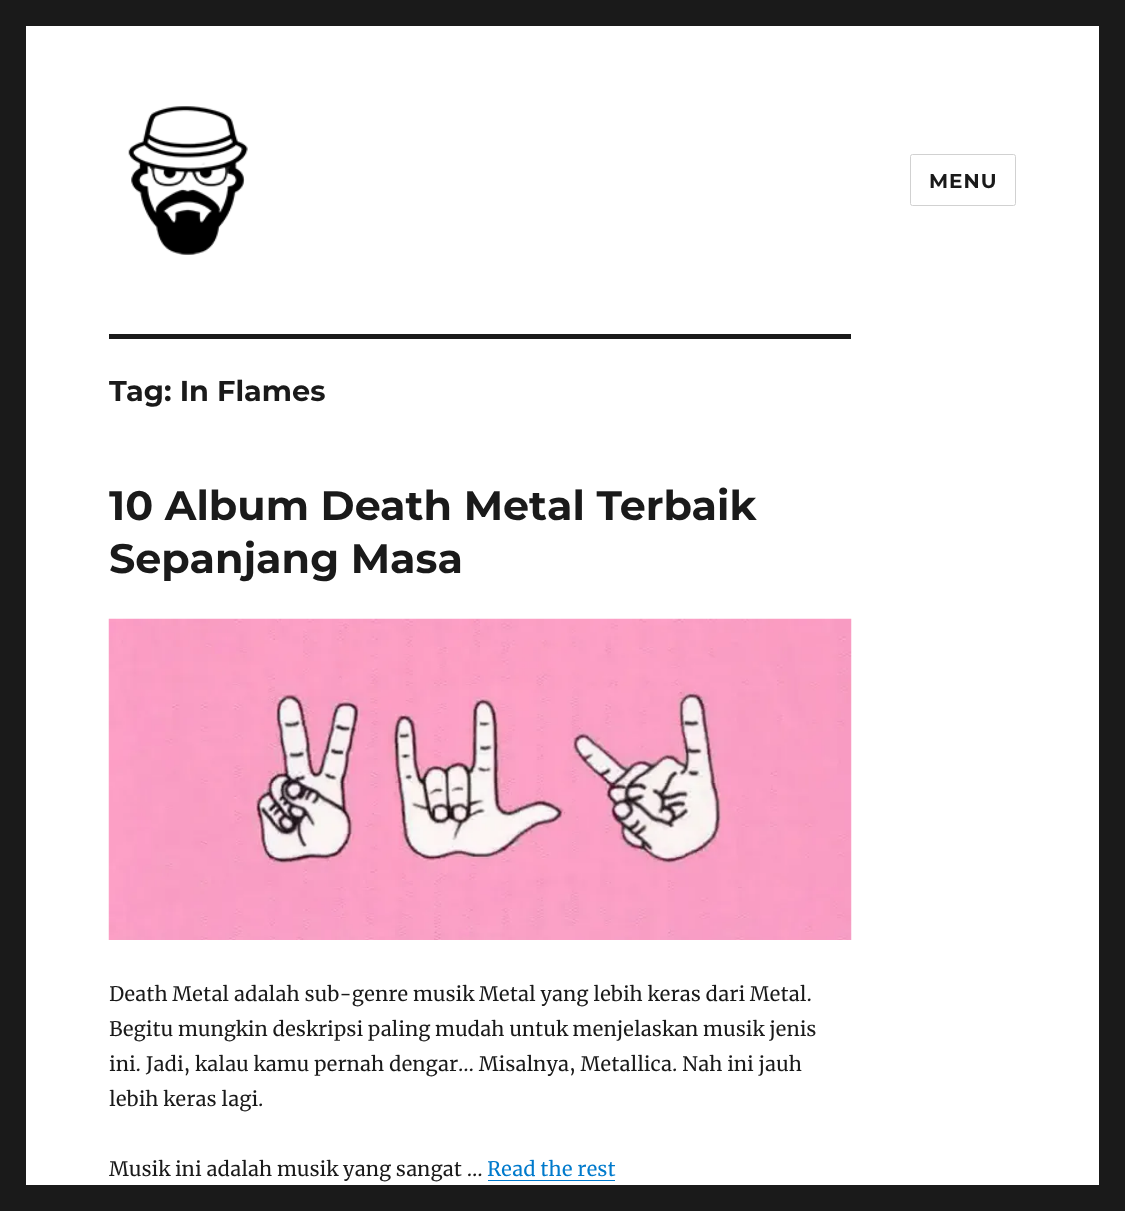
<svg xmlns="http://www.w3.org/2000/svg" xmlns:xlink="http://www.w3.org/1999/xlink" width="1125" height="1211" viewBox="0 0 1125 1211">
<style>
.cls-1{font:100 20px Montserrat;letter-spacing:1px;fill:#1a1a1a}
.cls-2{font:100 28.75px Montserrat;fill:#1a1a1a}
.cls-3{font:100 41.25px Montserrat;fill:#1a1a1a}
.cls-4{font:20px Merriweather;fill:#1a1a1a}
.cls-5{font:20px Merriweather;fill:#007acc}
</style>
<rect width="100%" height="100%" fill="#1a1a1a"/>
<rect fill="#ffffff" x="26" y="26" width="1073" height="1159"/>
<image xlink:href="image0.png" x="128" y="106" width="120" height="149"/>
<rect fill="none" stroke="#d1d1d1" x="910.5" y="154.5" width="105" height="51" rx="2"/>
<rect fill="#1a1a1a" x="109" y="334" width="742" height="5"/>
<image xlink:href="image1.png" x="108" y="618" width="744" height="322"/>
<rect fill="#007acc" x="488" y="1180" width="127" height="1"/>
<text class="cls-1" x="929" y="188">MENU</text>
<text class="cls-2" x="109" y="401">Tag: In Flames</text>
<text class="cls-3"><tspan x="109" y="520">10 Album Death Metal Terbaik</tspan><tspan x="109" y="573">Sepanjang Masa</tspan></text>
<text class="cls-4"><tspan x="109" y="1001">Death Metal adalah sub-genre musik Metal yang lebih keras dari Metal.</tspan><tspan x="109" y="1036">Begitu mungkin deskripsi paling mudah untuk menjelaskan musik jenis</tspan><tspan x="109" y="1071">ini. Jadi, kalau kamu pernah dengar… Misalnya, Metallica. Nah ini jauh</tspan><tspan x="109" y="1106">lebih keras lagi.</tspan></text>
<text class="cls-4" x="109" y="1176">Musik ini adalah musik yang sangat …</text>
<text class="cls-5" x="487" y="1176">Read the rest</text>
</svg>
